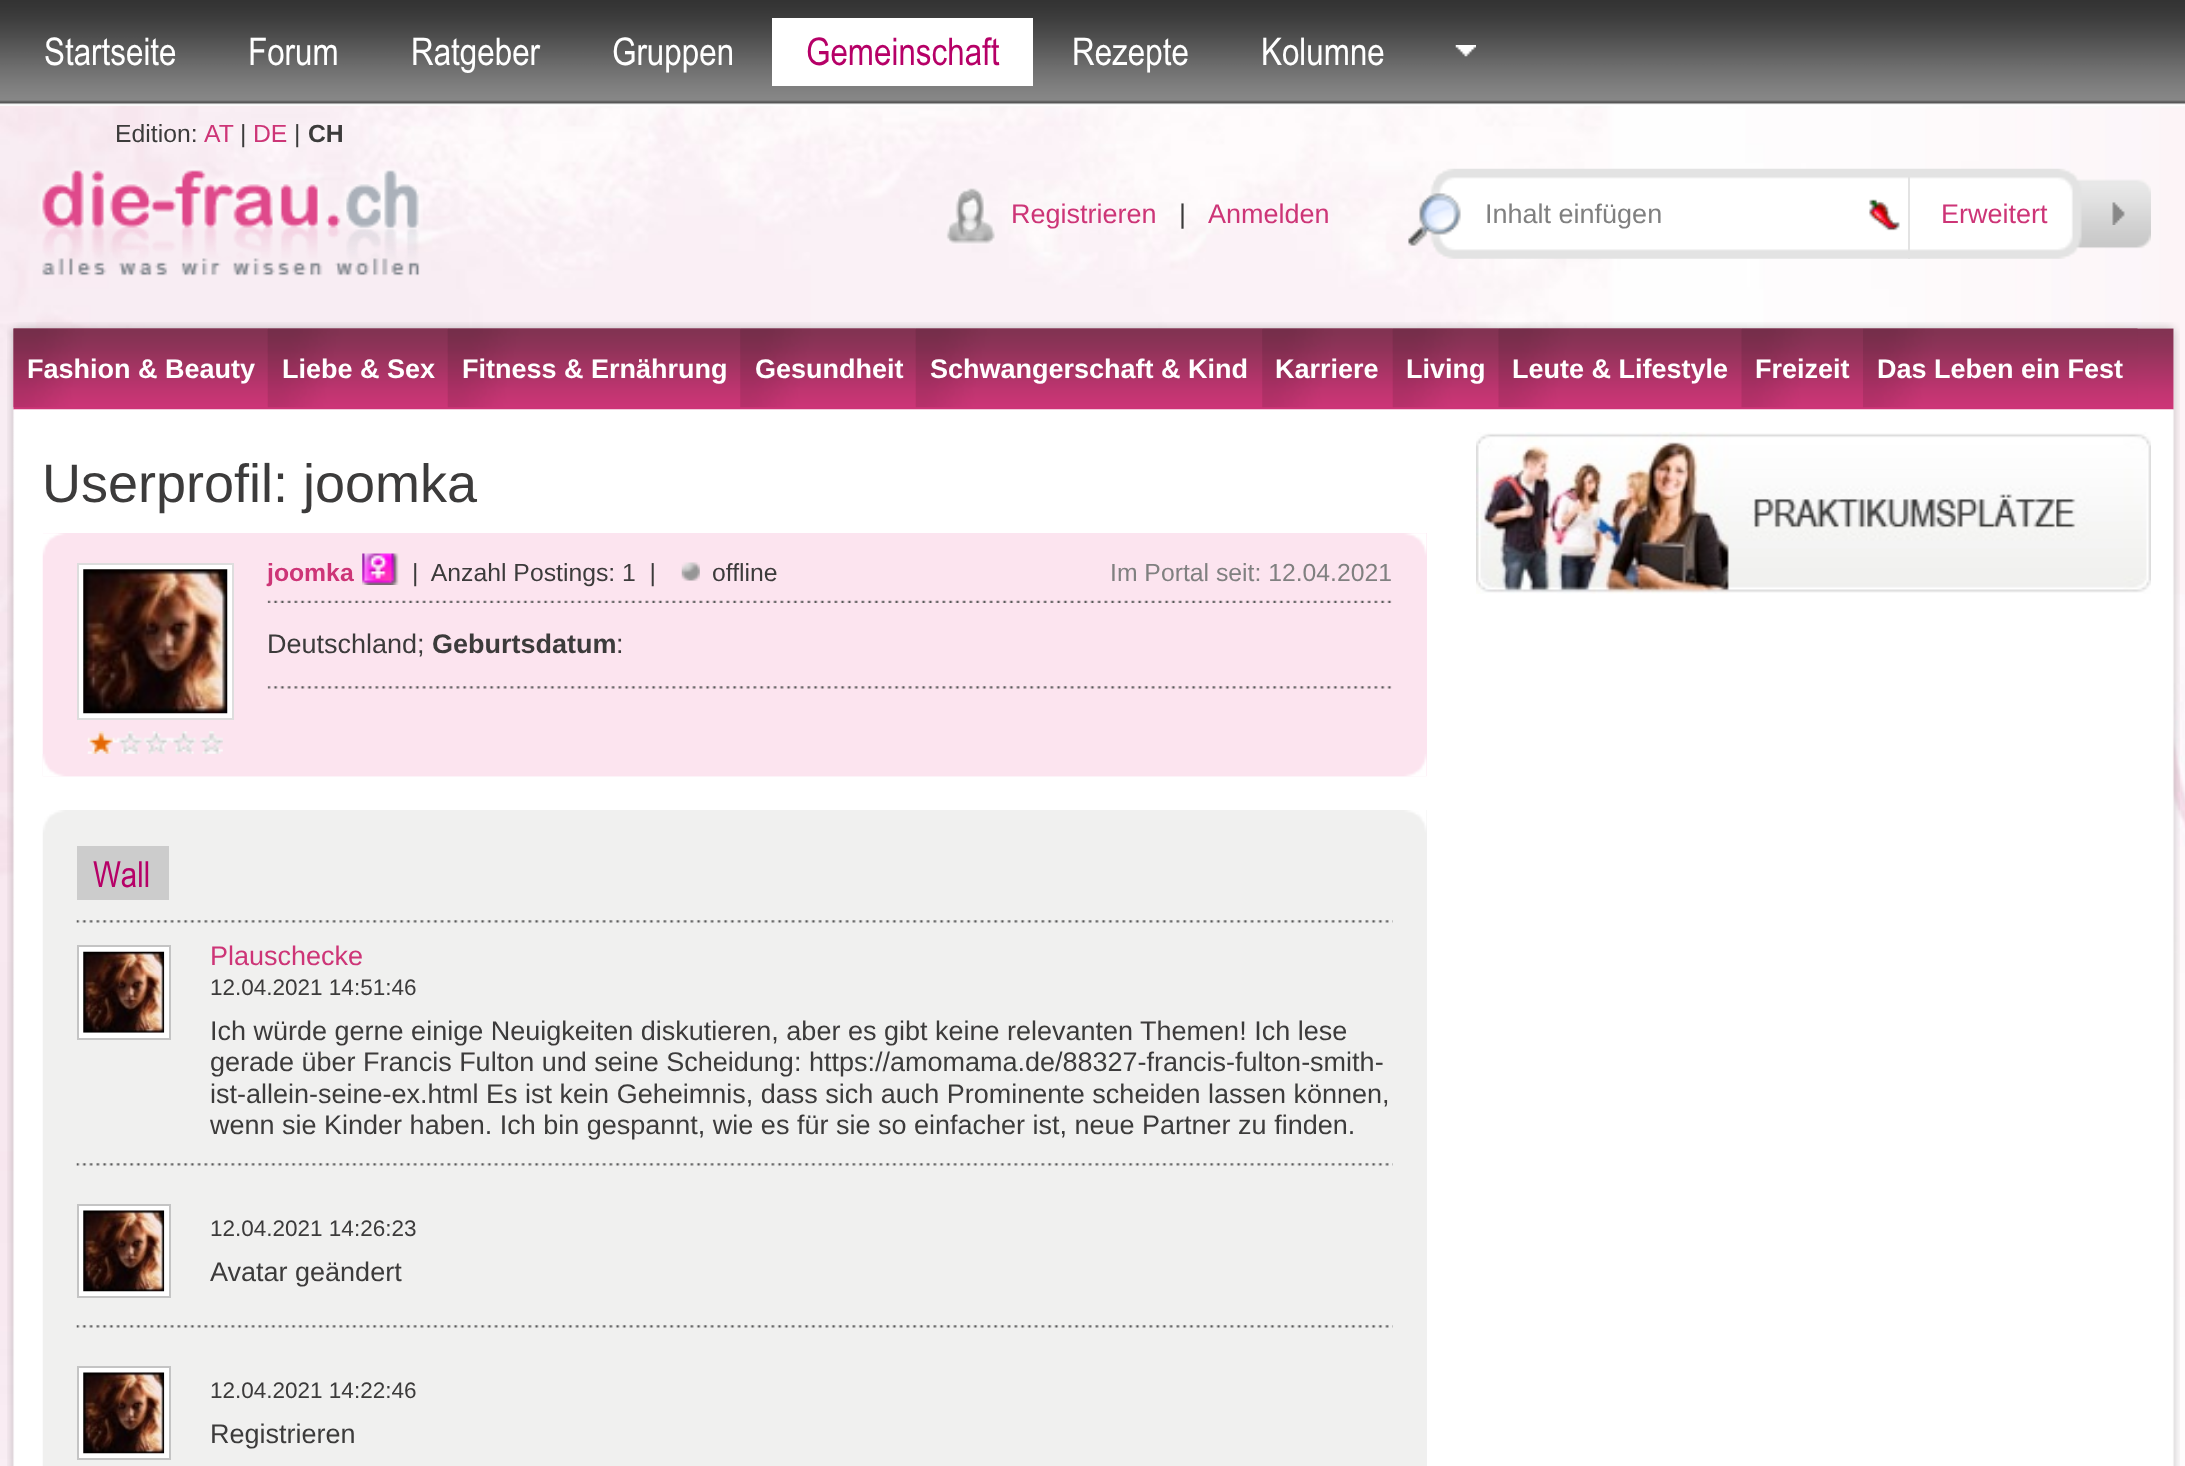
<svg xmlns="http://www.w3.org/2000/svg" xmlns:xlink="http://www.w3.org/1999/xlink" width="2185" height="1466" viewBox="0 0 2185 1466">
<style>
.cls-1{font:38.25px Arial;fill:#ffffff}
.cls-2{font:38.25px Arial;fill:#b60067}
.cls-3{font:24.75px Liberation Sans;fill:#3c3b3b}
.cls-4{font:24.75px Liberation Sans;fill:#cd3577}
.cls-5{font:bold 24.75px Liberation Sans;fill:#3c3b3b}
.cls-6{font:27px Liberation Sans;fill:#cd3577}
.cls-7{font:27px Liberation Sans;fill:#3c3b3b}
.cls-8{font:27px Liberation Sans;fill:#808080}
.cls-9{font:bold 27px Liberation Sans;fill:#ffffff}
.cls-10{font:54px Liberation Sans;fill:#3c3b3b}
.cls-11{font:bold 24.75px Liberation Sans;fill:#cd3577}
.cls-12{font:24.75px Liberation Sans;fill:#808080}
.cls-13{font:bold 27px Liberation Sans;fill:#3c3b3b}
.cls-14{font:36px Arial;fill:#b60067}
.cls-15{font:22.5px Liberation Sans;fill:#3c3b3b}
</style>
<rect width="100%" height="100%" fill="#ffffff"/>
<image xlink:href="image0.png" x="0" y="105" width="2185" height="1361"/>
<image xlink:href="image1.png" x="0" y="0" width="2185" height="106"/>
<rect fill="#ffffff" x="772" y="18" width="261" height="68"/>
<image xlink:href="image2.png" x="1455" y="45" width="21" height="12"/>
<image xlink:href="image3.png" x="38" y="166" width="385" height="110"/>
<image xlink:href="image4.png" x="946" y="188" width="49" height="57"/>
<image xlink:href="image5.png" x="1408" y="168" width="743" height="91"/>
<image xlink:href="image6.png" x="1869" y="199" width="31" height="32"/>
<rect fill="#e3e3e3" x="1908" y="169" width="2" height="90"/>
<image xlink:href="image7.png" x="2112" y="202" width="13" height="23"/>
<image xlink:href="image8.png" x="7" y="322" width="2173" height="88"/>
<image xlink:href="image9.png" x="13" y="328" width="2161" height="82"/>
<image xlink:href="image10.png" x="13" y="328" width="255" height="80"/>
<image xlink:href="image11.png" x="267" y="328" width="181" height="80"/>
<image xlink:href="image12.png" x="447" y="328" width="294" height="80"/>
<image xlink:href="image13.png" x="740" y="328" width="176" height="80"/>
<image xlink:href="image14.png" x="915" y="328" width="348" height="80"/>
<image xlink:href="image15.png" x="1262" y="328" width="131" height="80"/>
<image xlink:href="image16.png" x="1392" y="328" width="107" height="80"/>
<image xlink:href="image17.png" x="1498" y="328" width="244" height="80"/>
<image xlink:href="image18.png" x="1741" y="328" width="122" height="80"/>
<image xlink:href="image19.png" x="1863" y="328" width="275" height="80"/>
<image xlink:href="image20.png" x="7" y="409" width="2173" height="1057"/>
<rect fill="#fce4f1" x="43" y="533" width="1384" height="243"/>
<image xlink:href="image21.png" x="42" y="533" width="1385" height="244"/>
<rect fill="#ffffff" stroke="#dddddd" stroke-width="2" x="78" y="564" width="155" height="155"/>
<image xlink:href="image22.png" x="83" y="569" width="145" height="145"/>
<image xlink:href="image23.png" x="87" y="731" width="136" height="23"/>
<image xlink:href="image24.png" x="267" y="600" width="1125" height="3"/>
<image xlink:href="image25.png" x="362" y="553" width="37" height="32"/>
<image xlink:href="image26.png" x="681" y="562" width="19" height="19"/>
<image xlink:href="image27.png" x="267" y="686" width="1125" height="3"/>
<image xlink:href="image28.png" x="42" y="754" width="1385" height="23"/>
<rect fill="#f0f0f0" x="1426" y="810" width="1" height="656"/>
<image xlink:href="image29.png" x="42" y="810" width="1385" height="656"/>
<rect fill="#cccccc" x="77" y="846" width="92" height="54"/>
<image xlink:href="image30.png" x="76" y="920" width="1317" height="3"/>
<rect fill="#ffffff" stroke="#c4c4c4" stroke-width="2" x="78" y="946" width="92" height="93"/>
<image xlink:href="image31.png" x="83" y="951" width="82" height="82"/>
<image xlink:href="image30.png" x="76" y="1163" width="1317" height="3"/>
<rect fill="#ffffff" stroke="#c4c4c4" stroke-width="2" x="78" y="1205" width="92" height="92"/>
<image xlink:href="image32.png" x="83" y="1210" width="82" height="82"/>
<image xlink:href="image30.png" x="76" y="1325" width="1317" height="3"/>
<rect fill="#ffffff" stroke="#c4c4c4" stroke-width="2" x="78" y="1367" width="92" height="92"/>
<image xlink:href="image32.png" x="83" y="1372" width="82" height="82"/>
<image xlink:href="image33.png" x="1476" y="432" width="675" height="162"/>
<text class="cls-1" x="44" y="65">Startseite</text>
<text class="cls-1" x="248" y="65">Forum</text>
<text class="cls-1" x="411" y="65">Ratgeber</text>
<text class="cls-1" x="612" y="65">Gruppen</text>
<text class="cls-2" x="806" y="65">Gemeinschaft</text>
<text class="cls-1" x="1072" y="65">Rezepte</text>
<text class="cls-1" x="1261" y="65">Kolumne</text>
<text class="cls-3" x="115" y="142">Edition:</text>
<text class="cls-4" x="204" y="142">AT</text>
<text class="cls-3" x="240" y="142">|</text>
<text class="cls-4" x="253" y="142">DE</text>
<text class="cls-3" x="294" y="142">|</text>
<text class="cls-5" x="308" y="142">CH</text>
<text class="cls-6" x="1011" y="223">Registrieren</text>
<text class="cls-7" x="1179" y="223">|</text>
<text class="cls-6" x="1208" y="223">Anmelden</text>
<text class="cls-8" x="1485" y="223">Inhalt einfügen</text>
<text class="cls-6" x="1941" y="223">Erweitert</text>
<text class="cls-9" x="27" y="378">Fashion &amp; Beauty</text>
<text class="cls-9" x="282" y="378">Liebe &amp; Sex</text>
<text class="cls-9" x="462" y="378">Fitness &amp; Ernährung</text>
<text class="cls-9" x="755" y="378">Gesundheit</text>
<text class="cls-9" x="930" y="378">Schwangerschaft &amp; Kind</text>
<text class="cls-9" x="1275" y="378">Karriere</text>
<text class="cls-9" x="1406" y="378">Living</text>
<text class="cls-9" x="1512" y="378">Leute &amp; Lifestyle</text>
<text class="cls-9" x="1755" y="378">Freizeit</text>
<text class="cls-9" x="1877" y="378">Das Leben ein Fest</text>
<text class="cls-10" x="42" y="502">Userprofil: joomka</text>
<text class="cls-11" x="267" y="581">joomka</text>
<text class="cls-3" xml:space="preserve" x="412" y="581">|  Anzahl Postings: 1  |</text>
<text class="cls-3" x="712" y="581">offline</text>
<text class="cls-12" x="1110" y="581">Im Portal seit: 12.04.2021</text>
<text class="cls-7" x="267" y="653">Deutschland;</text>
<text class="cls-13" x="432" y="653">Geburtsdatum</text>
<text class="cls-7" x="616" y="653">:</text>
<text class="cls-14" x="93" y="887">Wall</text>
<text class="cls-6" x="210" y="965">Plauschecke</text>
<text class="cls-15" x="210" y="995">12.04.2021 14:51:46</text>
<text class="cls-7"><tspan x="210" y="1040">Ich würde gerne einige Neuigkeiten diskutieren, aber es gibt keine relevanten Themen! Ich lese</tspan><tspan x="210" y="1071">gerade über Francis Fulton und seine Scheidung: https://amomama.de/88327-francis-fulton-smith-</tspan><tspan x="210" y="1103">ist-allein-seine-ex.html Es ist kein Geheimnis, dass sich auch Prominente scheiden lassen können,</tspan><tspan x="210" y="1134">wenn sie Kinder haben. Ich bin gespannt, wie es für sie so einfacher ist, neue Partner zu finden.</tspan></text>
<text class="cls-15" x="210" y="1236">12.04.2021 14:26:23</text>
<text class="cls-7" x="210" y="1281">Avatar geändert</text>
<text class="cls-15" x="210" y="1398">12.04.2021 14:22:46</text>
<text class="cls-7" x="210" y="1443">Registrieren</text>
</svg>
